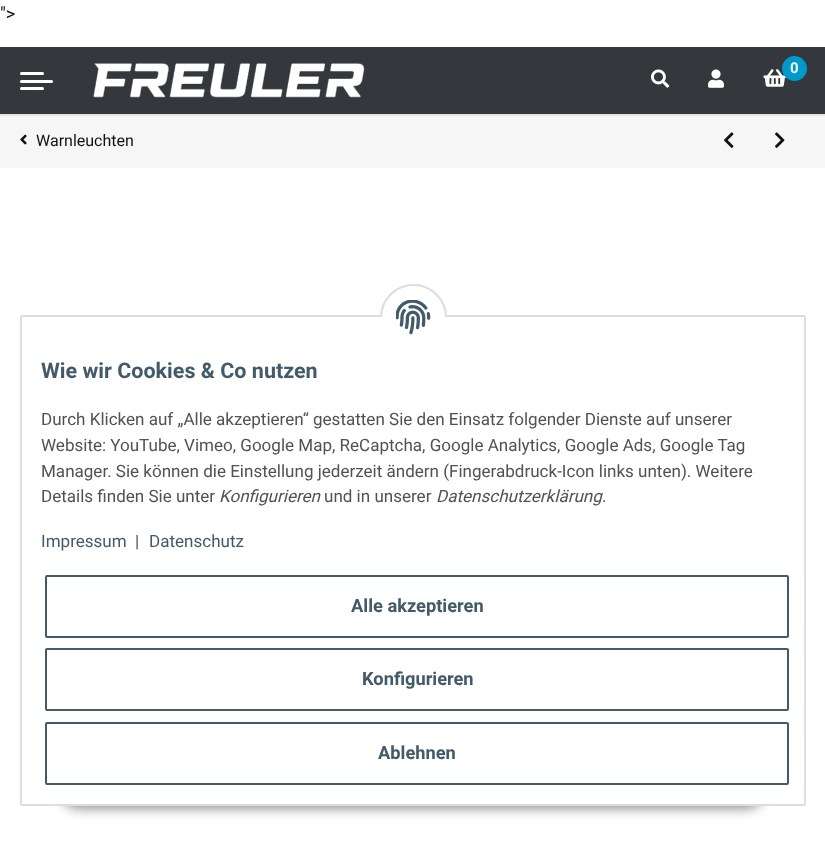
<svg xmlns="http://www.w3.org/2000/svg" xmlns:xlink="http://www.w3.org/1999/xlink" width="825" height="844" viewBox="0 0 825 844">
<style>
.cls-1{font:18.25px Roboto;fill:#111111}
.cls-2{font:bold 15px Roboto;fill:#f6f6f6}
.cls-3{font:16px Roboto;fill:#111111}
.cls-4{font:bold 21.5px Roboto;fill:#435a6b}
.cls-5{font:17.05px Roboto;fill:#525252}
.cls-6{font:italic 17.05px Roboto;fill:#525252}
.cls-7{font:17.05px Roboto;fill:#435a6b}
.cls-8{font:bold 18.25px Roboto;fill:#435a6b}
</style>
<rect width="100%" height="100%" fill="#ffffff"/>
<rect fill="#34383c" x="0" y="47" width="825" height="67"/>
<rect fill="#ffffff" x="20" y="80" width="33" height="3" rx="1.5"/>
<rect fill="#ffffff" x="20" y="72" width="24" height="3" rx="1.5"/>
<rect fill="#ffffff" x="20" y="87" width="24" height="3" rx="1.5"/>
<image xlink:href="image0.png" x="93" y="63" width="272" height="35"/>
<image xlink:href="image1.png" x="651" y="69" width="19" height="19"/>
<image xlink:href="image2.png" x="708" y="69" width="16" height="19"/>
<image xlink:href="image3.png" x="763" y="69" width="24" height="18"/>
<circle fill="#0099cc" cx="794.5" cy="68.5" r="12.5"/>
<rect fill="#e5e5e5" x="0" y="114" width="825" height="2"/>
<rect fill="#f6f6f6" x="0" y="116" width="825" height="52"/>
<image xlink:href="image4.png" x="20" y="134" width="7" height="11"/>
<image xlink:href="image5.png" x="724" y="132" width="10" height="16"/>
<image xlink:href="image6.png" x="775" y="132" width="10" height="16"/>
<rect fill="#111111" fill-opacity="0.45" filter="blur(6px)" x="60" y="770" width="705" height="39" rx="19.5"/>
<rect fill="#ffffff" stroke="#dddddd" stroke-width="2" x="21" y="316" width="784" height="489" rx="1"/>
<circle fill="#ffffff" stroke="#dddddd" stroke-width="2" cx="413.5" cy="317.5" r="32.5"/>
<rect fill="#ffffff" x="380" y="317" width="67" height="34"/>
<image xlink:href="image7.png" x="396" y="300" width="35" height="35"/>
<rect fill="none" stroke="#435a6b" stroke-width="2" x="46" y="576" width="742" height="61" rx="1"/>
<rect fill="none" stroke="#435a6b" stroke-width="2" x="46" y="649" width="742" height="61" rx="1"/>
<rect fill="none" stroke="#435a6b" stroke-width="2" x="46" y="723" width="742" height="61" rx="1"/>
<text class="cls-1" x="0" y="20">"&gt;</text>
<text class="cls-2" x="790" y="73">0</text>
<text class="cls-3" x="36" y="146">Warnleuchten</text>
<text class="cls-4" x="41" y="378">Wie wir Cookies &amp; Co nutzen</text>
<text class="cls-5"><tspan x="41" y="425">Durch Klicken auf „Alle akzeptieren“ gestatten Sie den Einsatz folgender Dienste auf unserer</tspan><tspan x="41" y="451">Website: YouTube, Vimeo, Google Map, ReCaptcha, Google Analytics, Google Ads, Google Tag</tspan><tspan x="41" y="477">Manager. Sie können die Einstellung jederzeit ändern (Fingerabdruck-Icon links unten). Weitere</tspan><tspan x="41" y="502">Details finden Sie unter</tspan></text>
<text class="cls-6" x="219" y="502">Konfigurieren</text>
<text class="cls-5" x="324" y="502">und in unserer</text>
<text class="cls-6" x="436" y="502">Datenschutzerklärung</text>
<text class="cls-5" x="602" y="502">.</text>
<text class="cls-7" x="41" y="547">Impressum</text>
<text class="cls-5" x="135" y="547">|</text>
<text class="cls-7" x="149" y="547">Datenschutz</text>
<text class="cls-8" x="351" y="612">Alle akzeptieren</text>
<text class="cls-8" x="362" y="685">Konfigurieren</text>
<text class="cls-8" x="378" y="759">Ablehnen</text>
</svg>
